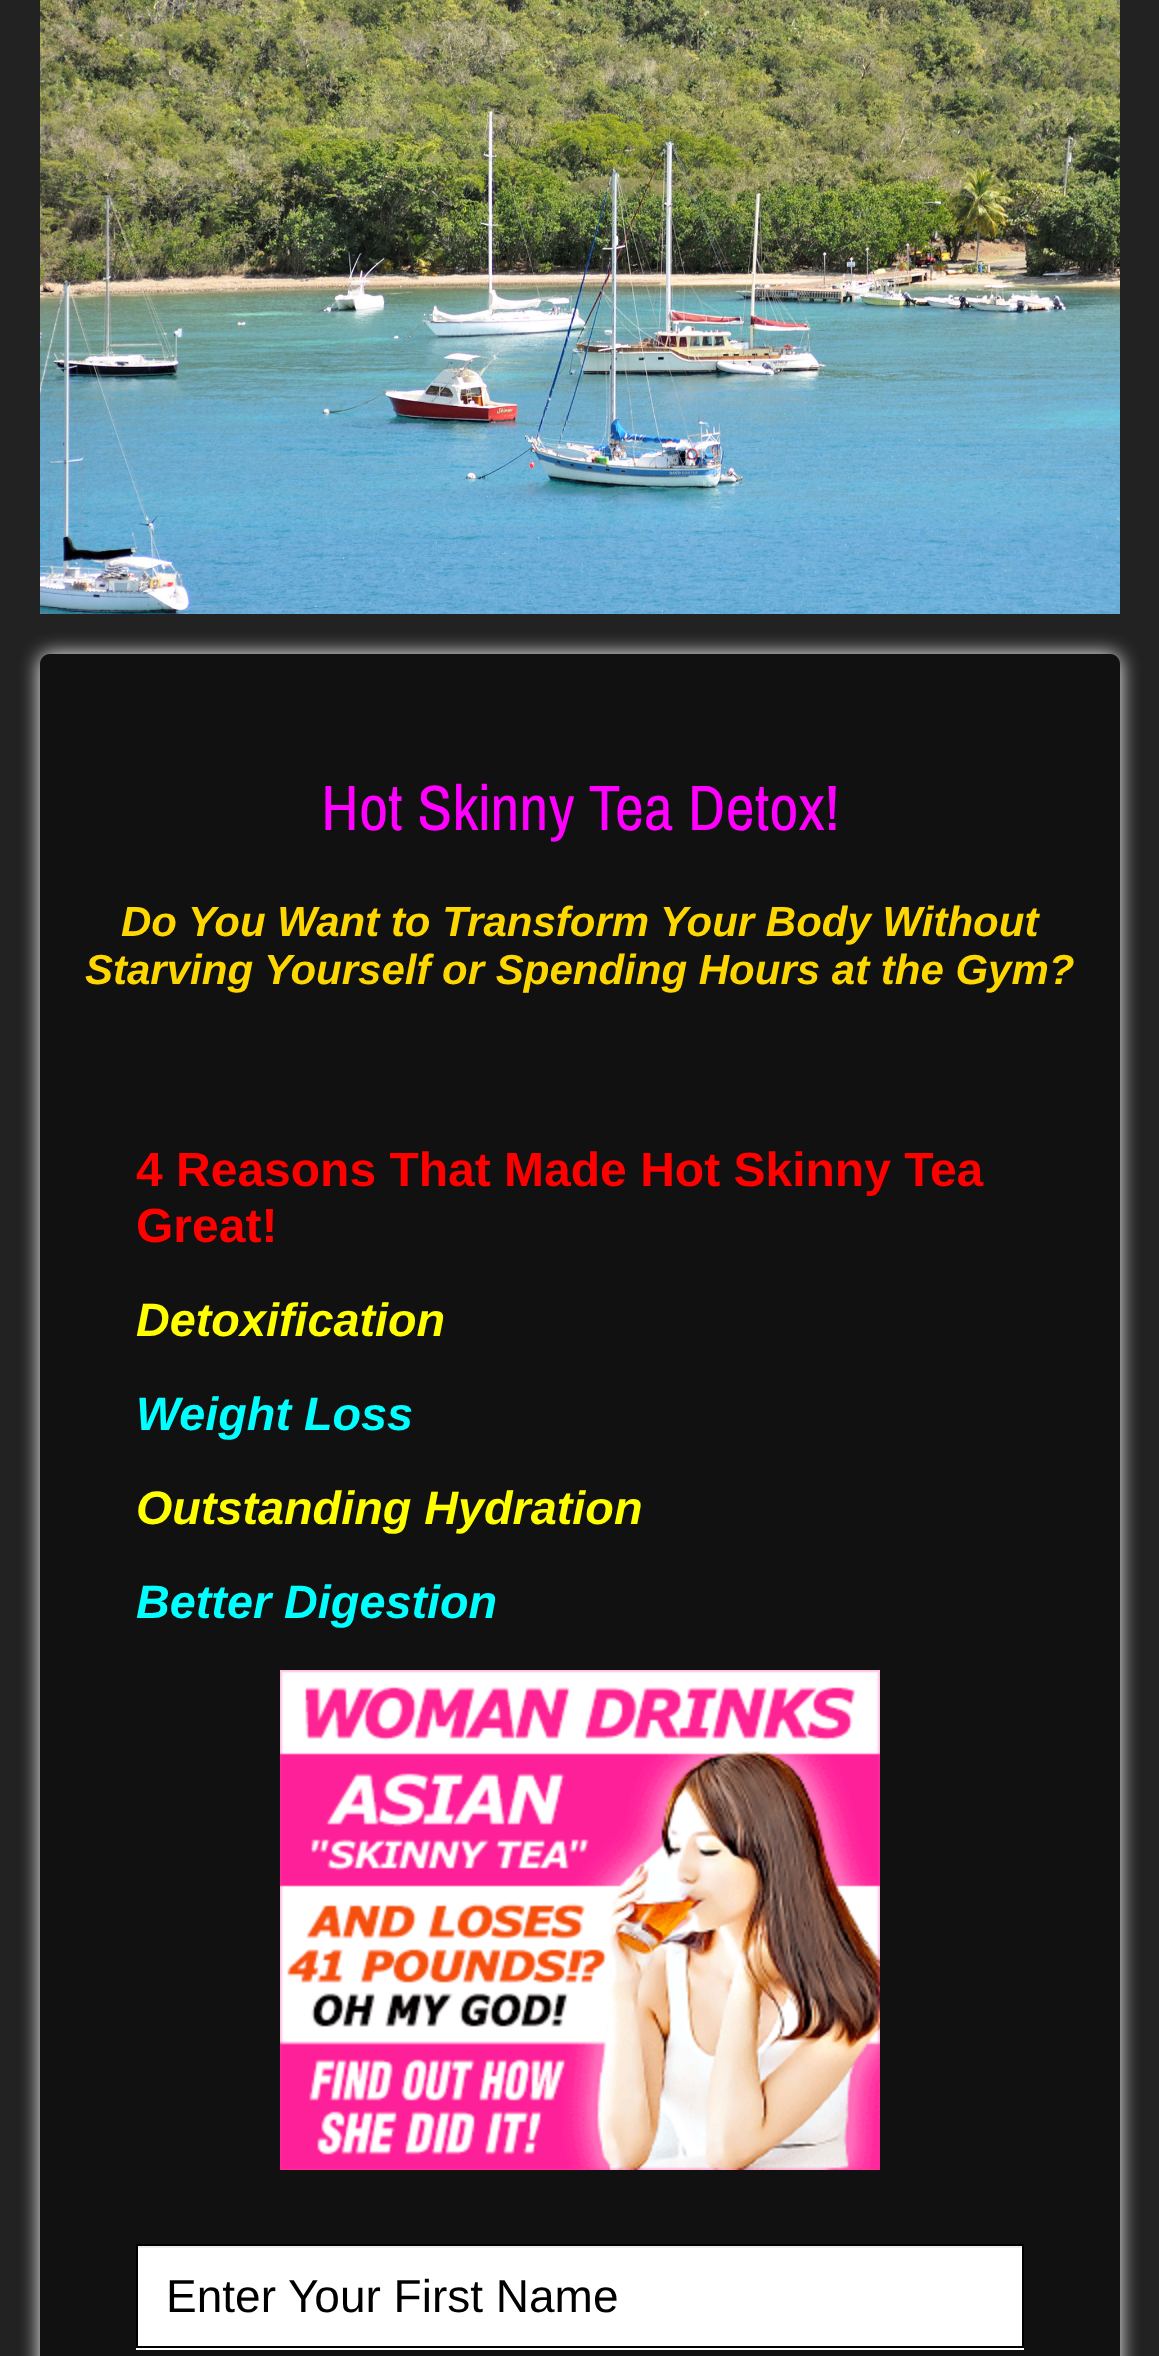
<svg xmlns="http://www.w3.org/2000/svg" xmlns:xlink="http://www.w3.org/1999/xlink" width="1159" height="2356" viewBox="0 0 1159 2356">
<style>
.cls-1{font:64px Archivo Narrow;fill:#ff00ff}
.cls-2{font:italic bold 42px Liberation Sans;fill:#ffd700}
.cls-3{font:bold 48px Liberation Sans;fill:#ff0000}
.cls-4{font:italic bold 46.75px Liberation Sans;fill:#ffff00}
.cls-5{font:italic bold 46.75px Liberation Sans;fill:#00ffff}
.cls-6{font:46px Liberation Sans;fill:#000000}
</style>
<defs>
<clipPath id="clip1"><path d="M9 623H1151V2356H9ZM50 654H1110C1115.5 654 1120 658.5 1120 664V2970C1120 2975.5 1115.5 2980 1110 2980H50C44.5 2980 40 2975.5 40 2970V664C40 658.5 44.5 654 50 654Z" clip-rule="evenodd"/></clipPath>
</defs>
<rect width="100%" height="100%" fill="#222222"/>
<image xlink:href="image0.png" x="40" y="0" width="1080" height="614"/>
<g clip-path="url(#clip1)">
<rect fill="#ffffff" filter="blur(10px)" x="40" y="654" width="1080" height="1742" rx="10"/>
</g>
<rect fill="#000000" fill-opacity="0.5" x="40" y="654" width="1080" height="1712" rx="10"/>
<image xlink:href="image1.png" x="280" y="1670" width="600" height="500"/>
<rect fill="#ffffff" x="136" y="2348" width="888" height="2"/>
<rect fill="#ffffff" x="138" y="2248" width="884" height="98"/>
<rect fill="#eeeeee" x="138" y="2246" width="884" height="2"/>
<rect fill="none" stroke="#000000" stroke-width="2" x="137" y="2245" width="886" height="102"/>
<text class="cls-1" x="321" y="830">Hot Skinny Tea Detox!</text>
<text class="cls-2" x="121" y="936">Do You Want to Transform Your Body Without</text>
<text class="cls-2" x="85" y="984">Starving Yourself or Spending Hours at the Gym?</text>
<text class="cls-3"><tspan x="136" y="1186">4 Reasons That Made Hot Skinny Tea</tspan><tspan x="136" y="1242">Great!</tspan></text>
<text class="cls-4" x="136" y="1336">Detoxification</text>
<text class="cls-5" x="136" y="1430">Weight Loss</text>
<text class="cls-4" x="136" y="1524">Outstanding Hydration</text>
<text class="cls-5" x="136" y="1618">Better Digestion</text>
<text class="cls-6" x="166" y="2312">Enter Your First Name</text>
</svg>
